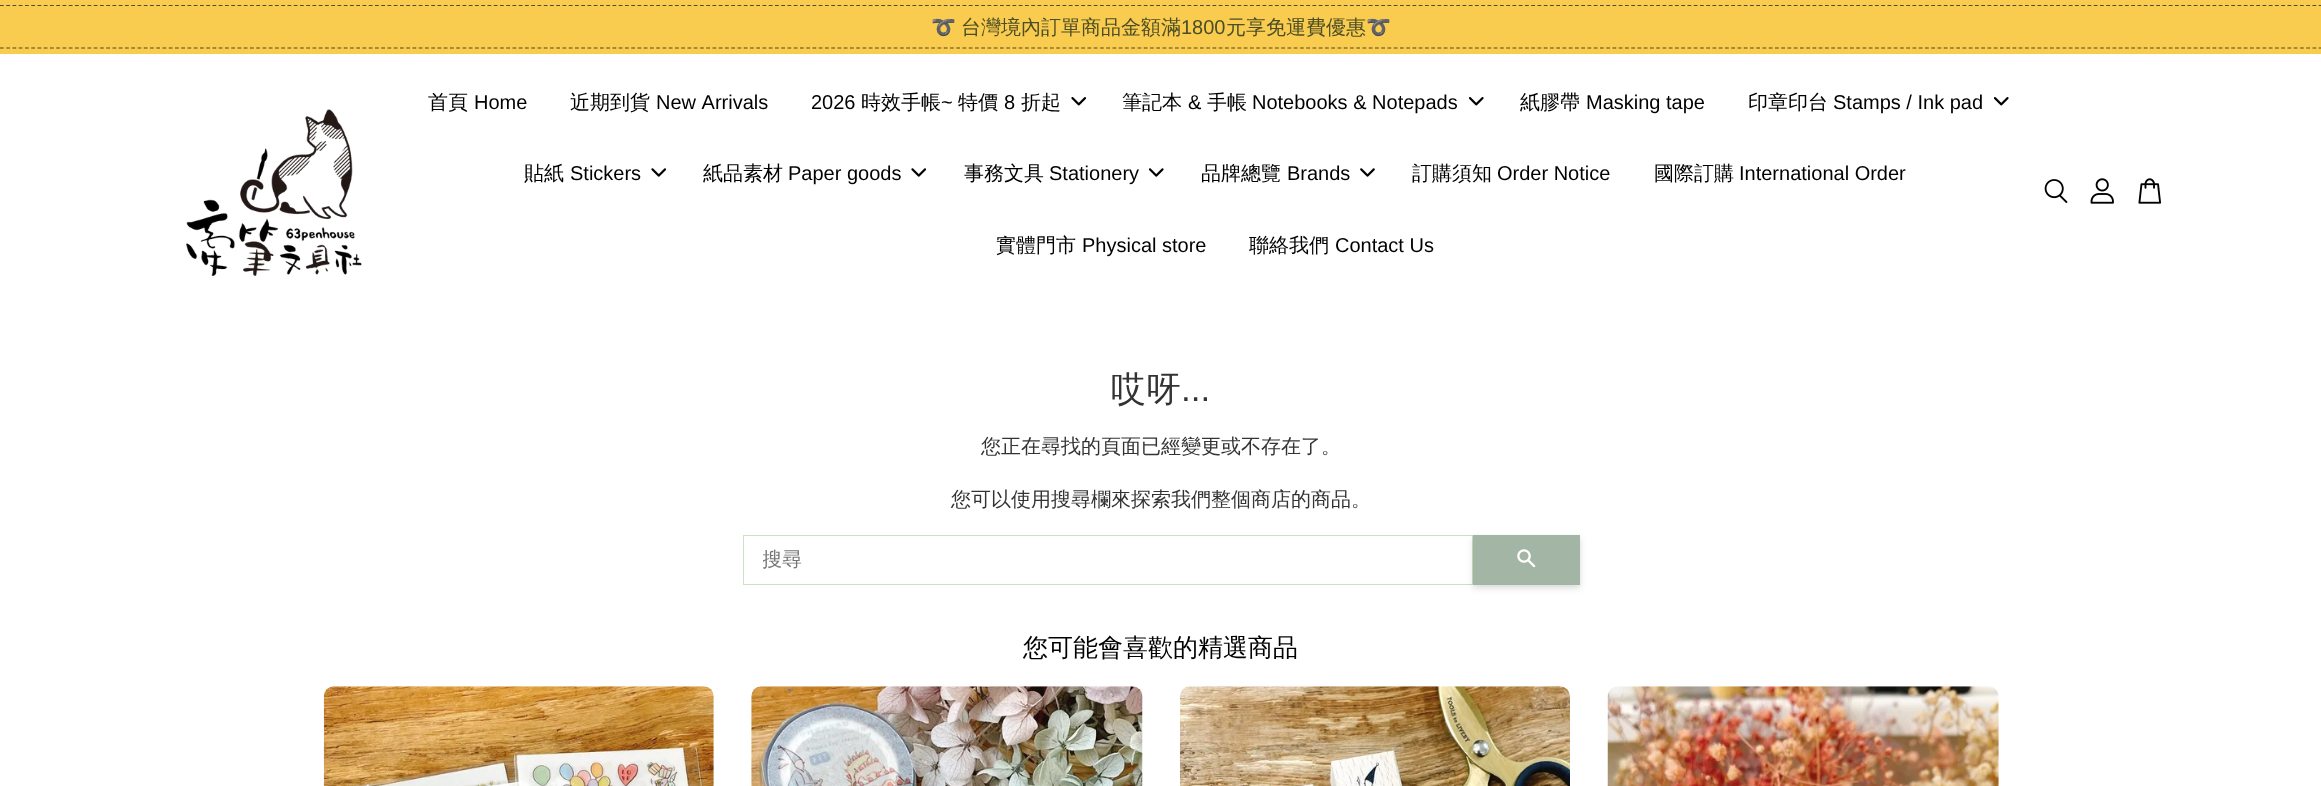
<svg xmlns="http://www.w3.org/2000/svg" xmlns:xlink="http://www.w3.org/1999/xlink" width="2321" height="786" viewBox="0 0 2321 786">
<style>*{font-kerning:none!important;font-variant-ligatures:none!important}</style>
<style>
.cls-1{font:20px Noto Color Emoji;fill:#4b4e26}
.cls-2{font:500 20px WenQuanYi Zen Hei;fill:#4b4e26}
.cls-3{font:20px Liberation Sans;fill:#4b4e26}
.cls-4{font:500 20px WenQuanYi Zen Hei;fill:#000000}
.cls-5{font:20px Liberation Sans;fill:#000000}
.cls-6{font:500 35px WenQuanYi Zen Hei;fill:#333333}
.cls-7{font:35px Liberation Sans;fill:#333333}
.cls-8{font:500 20px WenQuanYi Zen Hei;fill:#333333}
.cls-9{font:500 20px WenQuanYi Zen Hei;fill:#757575}
.cls-10{font:500 25px WenQuanYi Zen Hei;fill:#000000}
</style>
<defs>
<clipPath id="clip1"><rect x="763" y="548" width="685" height="26"/></clipPath>
</defs>
<rect width="100%" height="100%" fill="#ffffff"/>
<rect fill="#f9cb4f" x="0" y="0" width="2321" height="54"/>
<path fill="none" stroke="#4b4e26" stroke-width="1.2" stroke-dasharray="3.75 2.5" d="M0 5.5H2321"/>
<path fill="none" stroke="#4b4e26" stroke-width="1.2" stroke-dasharray="3.75 2.5" d="M0 48H2321"/>
<image xlink:href="image0.png" x="186" y="109" width="176" height="167"/>
<image xlink:href="image1.png" x="1071" y="97" width="15" height="9"/>
<image xlink:href="image2.png" x="1469" y="97" width="15" height="9"/>
<image xlink:href="image2.png" x="1994" y="97" width="15" height="9"/>
<image xlink:href="image3.png" x="651" y="168" width="15" height="9"/>
<image xlink:href="image3.png" x="911" y="168" width="15" height="9"/>
<image xlink:href="image4.png" x="1149" y="168" width="15" height="9"/>
<image xlink:href="image5.png" x="1360" y="168" width="15" height="9"/>
<image xlink:href="image6.png" x="2044" y="179" width="24" height="24"/>
<image xlink:href="image7.png" x="2090" y="178" width="24" height="26"/>
<image xlink:href="image8.png" x="2138" y="178" width="23" height="26"/>
<rect fill="none" stroke="#cbe1c3" x="743.5" y="535.5" width="729" height="49"/>
<rect fill="#000000" fill-opacity="0.15" filter="blur(3px)" x="1473" y="538" width="107" height="50"/>
<rect fill="#a3b5a4" x="1473" y="535" width="107" height="50"/>
<image xlink:href="image9.png" x="1517" y="549" width="19" height="19"/>
<image xlink:href="image10.png" x="323" y="686" width="391" height="100"/>
<image xlink:href="image11.png" x="751" y="686" width="392" height="100"/>
<image xlink:href="image12.png" x="1180" y="686" width="390" height="100"/>
<image xlink:href="image13.png" x="1607" y="686" width="392" height="100"/>
<text class="cls-1" x="931" y="34">➰</text>
<text class="cls-2" x="961" y="34">台灣境內訂單商品金額滿</text>
<text class="cls-3" x="1181" y="34">1800</text>
<text class="cls-2" x="1226" y="34">元享免運費優惠</text>
<text class="cls-1" x="1366" y="34">➰</text>
<text class="cls-4" x="428" y="109">首頁</text>
<text class="cls-5" x="474" y="109">Home</text>
<text class="cls-4" x="570" y="109">近期到貨</text>
<text class="cls-5" x="656" y="109">New Arrivals</text>
<text class="cls-5" x="811" y="109">2026</text>
<text class="cls-4" x="861" y="109">時效手帳</text>
<text class="cls-5" x="941" y="109">~</text>
<text class="cls-4" x="958" y="109">特價</text>
<text class="cls-5" x="1004" y="109">8</text>
<text class="cls-4" x="1021" y="109">折起</text>
<text class="cls-4" x="1122" y="109">筆記本</text>
<text class="cls-5" x="1188" y="109">&amp;</text>
<text class="cls-4" x="1207" y="109">手帳</text>
<text class="cls-5" x="1252" y="109">Notebooks &amp; Notepads</text>
<text class="cls-4" x="1520" y="109">紙膠帶</text>
<text class="cls-5" x="1586" y="109">Masking tape</text>
<text class="cls-4" x="1748" y="109">印章印台</text>
<text class="cls-5" x="1833" y="109">Stamps / Ink pad</text>
<text class="cls-4" x="524" y="180">貼紙</text>
<text class="cls-5" x="570" y="180">Stickers</text>
<text class="cls-4" x="703" y="180">紙品素材</text>
<text class="cls-5" x="788" y="180">Paper goods</text>
<text class="cls-4" x="964" y="180">事務文具</text>
<text class="cls-5" x="1049" y="180">Stationery</text>
<text class="cls-4" x="1201" y="180">品牌總覽</text>
<text class="cls-5" x="1287" y="180">Brands</text>
<text class="cls-4" x="1412" y="180">訂購須知</text>
<text class="cls-5" x="1497" y="180">Order Notice</text>
<text class="cls-4" x="1654" y="180">國際訂購</text>
<text class="cls-5" x="1739" y="180">International Order</text>
<text class="cls-4" x="996" y="252">實體門市</text>
<text class="cls-5" x="1082" y="252">Physical store</text>
<text class="cls-4" x="1249" y="252">聯絡我們</text>
<text class="cls-5" x="1335" y="252">Contact Us</text>
<text class="cls-6" x="1111" y="401">哎呀</text>
<text class="cls-7" x="1181" y="401">...</text>
<text class="cls-8" x="981" y="453">您正在尋找的頁面已經變更或不存在了。</text>
<text class="cls-8" x="951" y="506">您可以使用搜尋欄來探索我們整個商店的商品。</text>
<g clip-path="url(#clip1)">
<text class="cls-9" x="762" y="566">搜尋</text>
</g>
<text class="cls-10" x="1023" y="656">您可能會喜歡的精選商品</text>
</svg>
